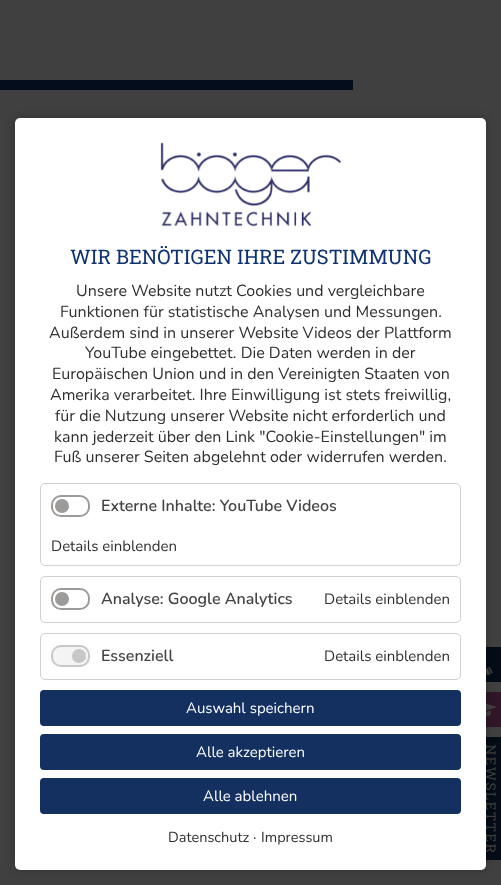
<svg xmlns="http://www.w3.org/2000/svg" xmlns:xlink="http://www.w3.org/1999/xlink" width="501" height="885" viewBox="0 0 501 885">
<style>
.cls-1{font:20px Roboto Slab;fill:#0e3371}
.cls-2{font:200 16px Nunito;fill:#303030}
.cls-3{font:200 16px 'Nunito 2';fill:#444444}
.cls-4{font:200 15px Nunito;fill:#303030}
.cls-5{font:200 15px Nunito;fill:#ffffff}
.cls-6{font:200 14.5px Nunito;fill:#303030}
</style>
<rect width="100%" height="100%" fill="#404040"/>
<rect fill="#040d1c" x="0" y="80" width="353" height="10"/>
<image xlink:href="image0.png" x="486" y="647" width="15" height="35"/>
<image xlink:href="image1.png" x="486" y="692" width="15" height="35"/>
<image xlink:href="image2.png" x="486" y="737" width="15" height="123"/>
<rect fill="#000000" fill-opacity="0.25" filter="blur(5px)" x="15" y="118" width="471" height="752" rx="5"/>
<rect fill="#ffffff" x="15" y="118" width="471" height="752" rx="5"/>
<image xlink:href="image3.png" x="160" y="142" width="181" height="85"/>
<rect fill="none" stroke="#d0d0d0" x="40.5" y="483.5" width="420" height="82" rx="4.5"/>
<rect fill="none" stroke="#9c9b99" stroke-width="2" x="52" y="496" width="37" height="20" rx="9"/>
<circle fill="#9c9b99" cx="62" cy="506" r="7"/>
<rect fill="none" stroke="#d0d0d0" x="40.5" y="576.5" width="420" height="46" rx="4.5"/>
<rect fill="none" stroke="#9c9b99" stroke-width="2" x="52" y="589" width="37" height="20" rx="9"/>
<circle fill="#9c9b99" cx="62" cy="599" r="7"/>
<rect fill="none" stroke="#d0d0d0" x="40.5" y="633.5" width="420" height="46" rx="4.5"/>
<rect fill="#f4f4f4" stroke="#c8c7c5" stroke-width="2" x="52" y="646" width="37" height="20" rx="9"/>
<circle fill="#c8c7c5" cx="79" cy="656" r="7"/>
<rect fill="#143060" x="40" y="690" width="421" height="36" rx="4"/>
<rect fill="#143060" x="40" y="734" width="421" height="36" rx="4"/>
<rect fill="#143060" x="40" y="778" width="421" height="36" rx="4"/>
<text class="cls-1" x="70" y="264">WIR BENÖTIGEN IHRE ZUSTIMMUNG</text>
<text class="cls-2" x="76" y="296">Unsere Website nutzt Cookies und vergleichbare</text>
<text class="cls-2" x="60" y="317">Funktionen für statistische Analysen und Messungen.</text>
<text class="cls-2" x="49" y="338">Außerdem sind in unserer Website Videos der Plattform</text>
<text class="cls-2" x="85" y="358">YouTube eingebettet. Die Daten werden in der</text>
<text class="cls-2" x="52" y="379">Europäischen Union und in den Vereinigten Staaten von</text>
<text class="cls-2" x="50" y="400">Amerika verarbeitet. Ihre Einwilligung ist stets freiwillig,</text>
<text class="cls-2" x="55" y="421">für die Nutzung unserer Website nicht erforderlich und</text>
<text class="cls-2"><tspan x="54" y="442">kann jederzeit über den Link "Cookie-Einstellungen" im</tspan><tspan x="54" y="462">Fuß unserer Seiten abgelehnt oder widerrufen werden.</tspan></text>
<text class="cls-3" x="101" y="511">Externe Inhalte: YouTube Videos</text>
<text class="cls-4" x="51" y="551">Details einblenden</text>
<text class="cls-3" x="101" y="604">Analyse: Google Analytics</text>
<text class="cls-4" x="324" y="604">Details einblenden</text>
<text class="cls-3" x="101" y="661">Essenziell</text>
<text class="cls-4" x="324" y="661">Details einblenden</text>
<text class="cls-5" x="186" y="713">Auswahl speichern</text>
<text class="cls-5" x="196" y="757">Alle akzeptieren</text>
<text class="cls-5" x="203" y="801">Alle ablehnen</text>
<text class="cls-6" x="168" y="842">Datenschutz</text>
<text class="cls-6" x="253" y="842">·</text>
<text class="cls-6" x="261" y="842">Impressum</text>
</svg>
